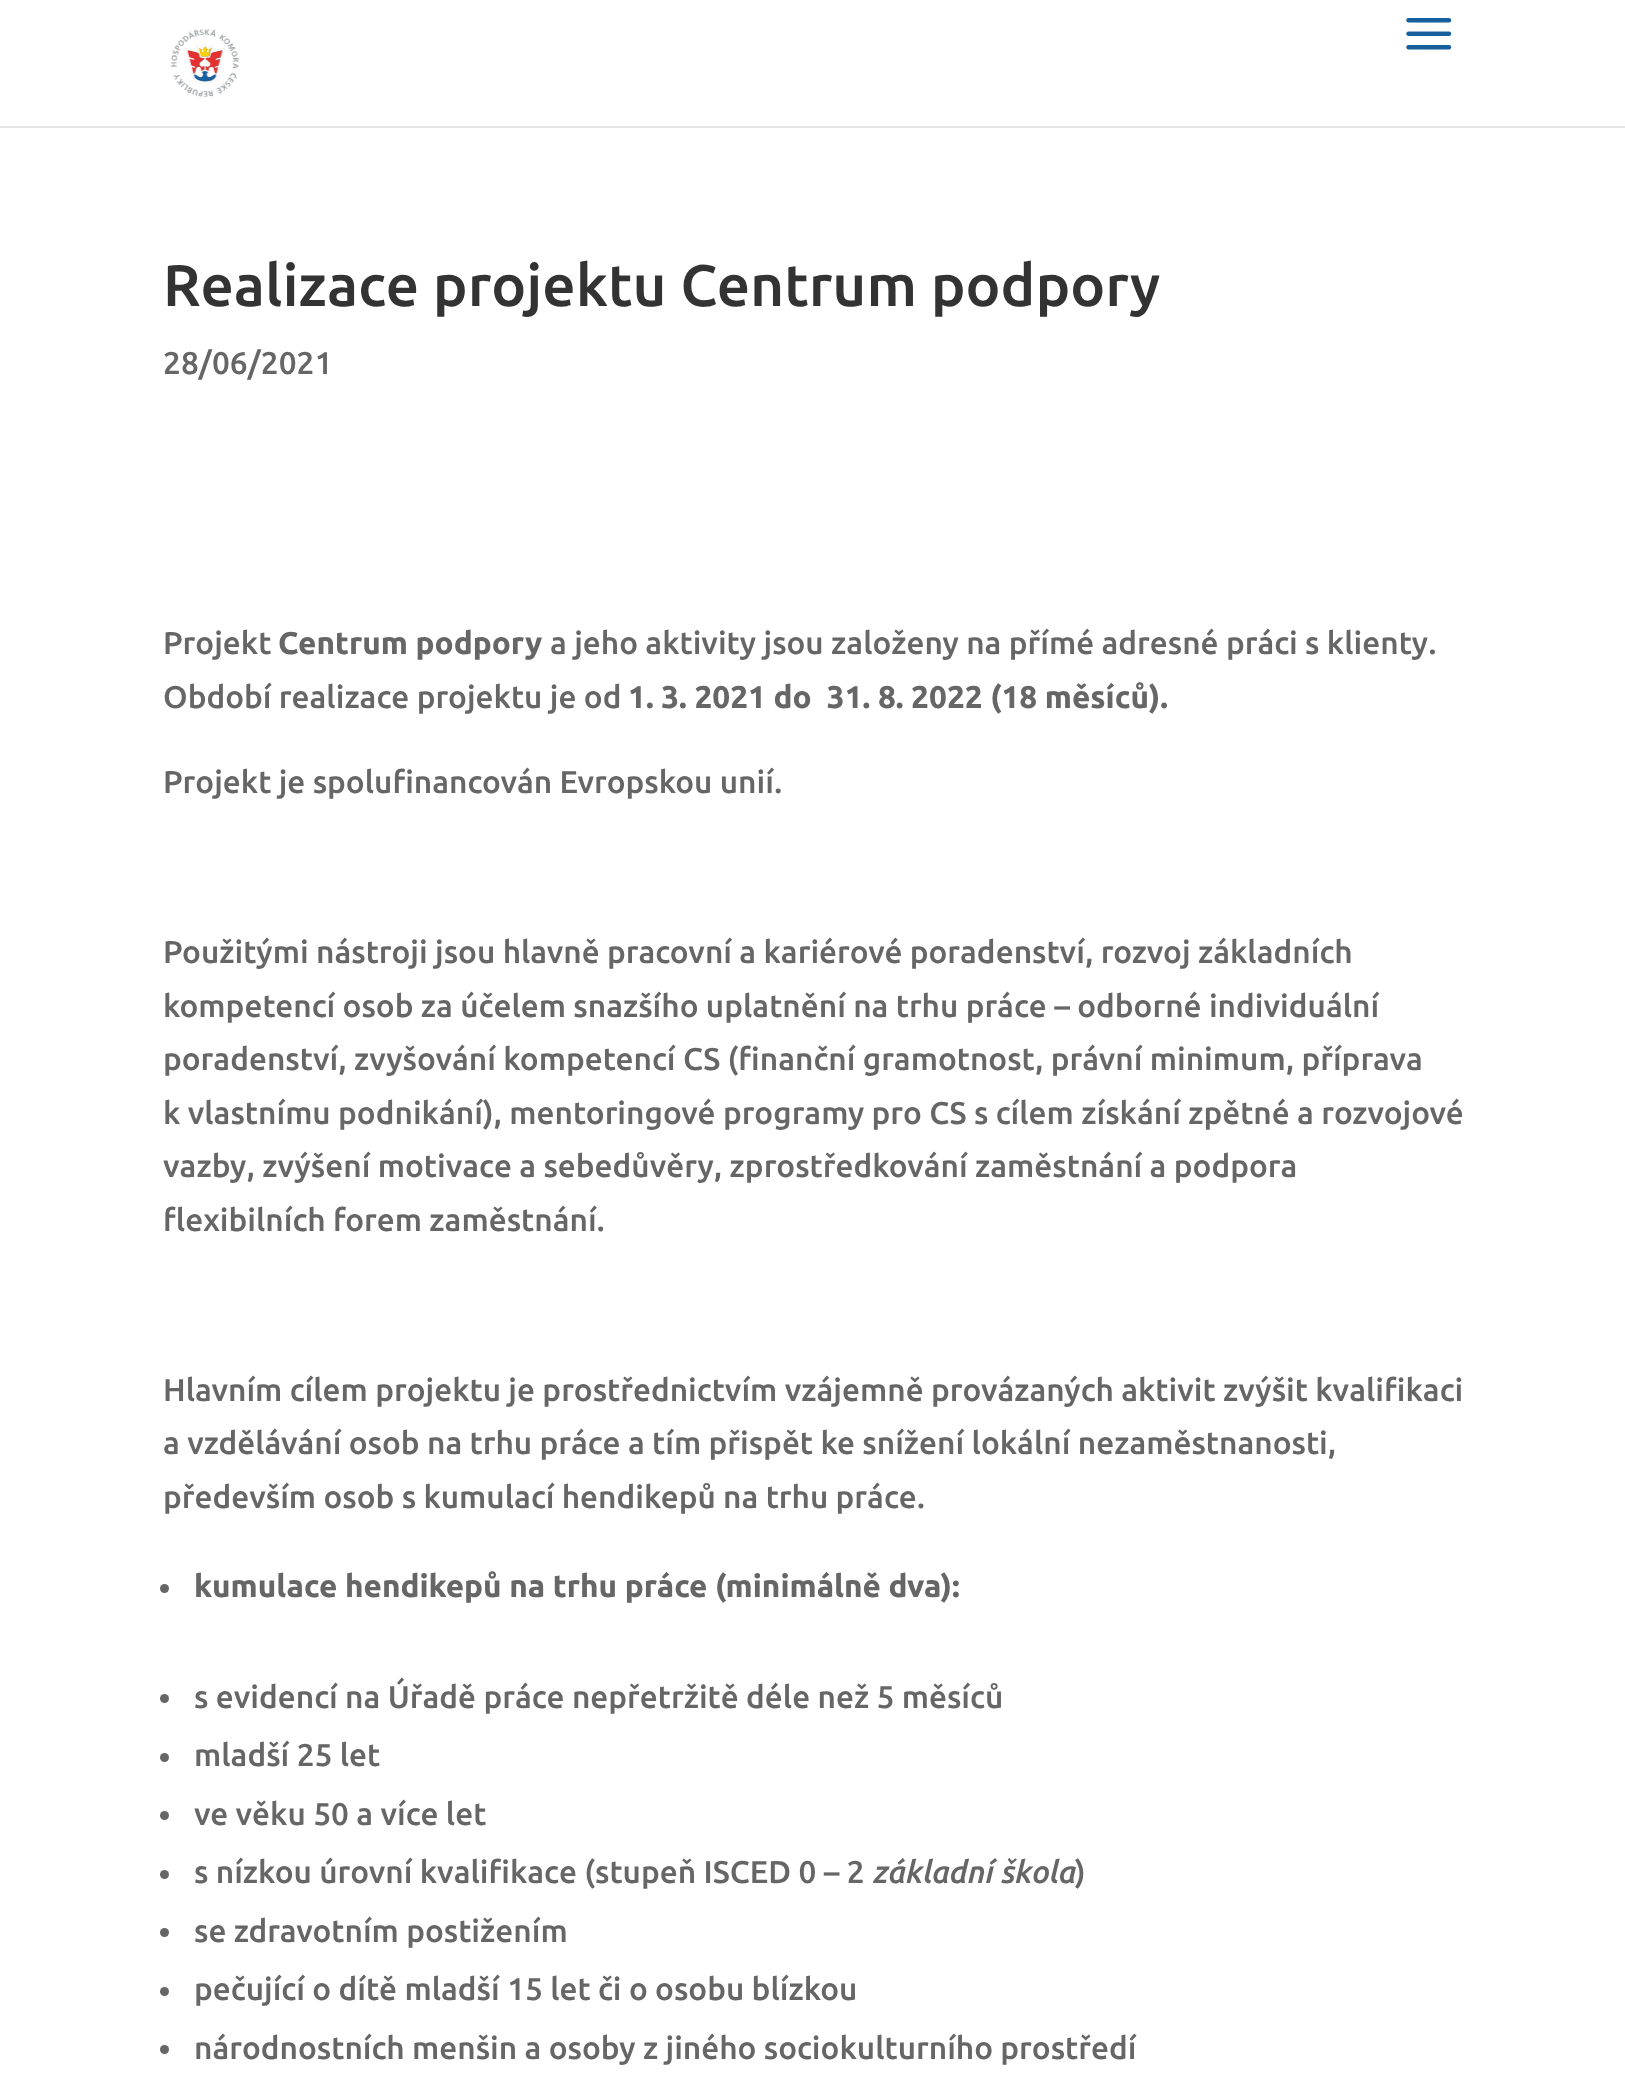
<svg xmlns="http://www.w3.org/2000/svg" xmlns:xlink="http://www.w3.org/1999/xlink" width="1625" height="2089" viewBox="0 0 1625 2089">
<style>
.cls-1{font:500 58.5px Ubuntu;fill:#333333}
.cls-2{font:500 31.5px Ubuntu;fill:#666666}
.cls-3{font:bold 31.5px Ubuntu;fill:#666666}
.cls-4{font:italic 500 31.5px Ubuntu;fill:#666666}
</style>
<rect width="100%" height="100%" fill="#ffffff"/>
<path fill="#e6e6e6" d="M0 126V128H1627V2V126Z"/>
<image xlink:href="image0.png" x="170" y="29" width="69" height="68"/>
<image xlink:href="image1.png" x="1406" y="18" width="46" height="32"/>
<circle fill="#666666" cx="164.5" cy="1588.5" r="4.5"/>
<circle fill="#666666" cx="164.5" cy="1698.5" r="4.5"/>
<circle fill="#666666" cx="164.5" cy="1757.5" r="4.5"/>
<circle fill="#666666" cx="164.5" cy="1815.5" r="4.5"/>
<circle fill="#666666" cx="164.5" cy="1874.5" r="4.5"/>
<circle fill="#666666" cx="164.5" cy="1932.5" r="4.5"/>
<circle fill="#666666" cx="164.5" cy="1991.5" r="4.5"/>
<circle fill="#666666" cx="164.5" cy="2049.5" r="4.5"/>
<text class="cls-1" x="163" y="306">Realizace projektu Centrum podpory</text>
<text class="cls-2" x="163" y="374">28/06/2021</text>
<text class="cls-2" x="163" y="654">Projekt</text>
<text class="cls-3" x="278" y="654">Centrum podpory</text>
<text class="cls-2" x="550" y="654">a jeho aktivity jsou založeny na přímé adresné práci s klienty.</text>
<text class="cls-2" x="163" y="708">Období realizace projektu je od</text>
<text class="cls-3" xml:space="preserve" x="628" y="708">1. 3. 2021 do  31. 8. 2022 (18 měsíců).</text>
<text class="cls-2" x="163" y="793">Projekt je spolufinancován Evropskou unií.</text>
<text class="cls-2"><tspan x="163" y="963">Použitými nástroji jsou hlavně pracovní a kariérové poradenství, rozvoj základních</tspan><tspan x="163" y="1017">kompetencí osob za účelem snazšího uplatnění na trhu práce – odborné individuální</tspan><tspan x="163" y="1070">poradenství, zvyšování kompetencí CS (finanční gramotnost, právní minimum, příprava</tspan><tspan x="163" y="1124">k vlastnímu podnikání), mentoringové programy pro CS s cílem získání zpětné a rozvojové</tspan><tspan x="163" y="1177">vazby, zvýšení motivace a sebedůvěry, zprostředkování zaměstnání a podpora</tspan><tspan x="163" y="1231">flexibilních forem zaměstnání.</tspan></text>
<text class="cls-2"><tspan x="163" y="1401">Hlavním cílem projektu je prostřednictvím vzájemně provázaných aktivit zvýšit kvalifikaci</tspan><tspan x="163" y="1454">a vzdělávání osob na trhu práce a tím přispět ke snížení lokální nezaměstnanosti,</tspan><tspan x="163" y="1508">především osob s kumulací hendikepů na trhu práce.</tspan></text>
<text class="cls-3" x="194" y="1597">kumulac</text>
<text class="cls-3" x="319" y="1597">e hendikepů na trhu práce (minimálně dva):</text>
<text class="cls-2"><tspan x="194" y="1708">s evidencí na Úřadě práce nepřetržitě déle než 5 měsíců</tspan><tspan x="194" y="1766">mladší 25 let</tspan><tspan x="194" y="1825">ve věku 50 a více let</tspan><tspan x="194" y="1883">s nízkou úrovní kvalifikace (stupeň ISCED 0 – 2</tspan></text>
<text class="cls-4" x="872" y="1883">základní škola</text>
<text class="cls-2" x="1075" y="1883">)</text>
<text class="cls-2"><tspan x="194" y="1942">se zdravotním postižením</tspan><tspan x="194" y="2000">pečující o dítě mladší 15 let či o osobu blízkou</tspan><tspan x="194" y="2059">národnostních menšin a osoby z jiného sociokulturního prostředí</tspan></text>
</svg>
